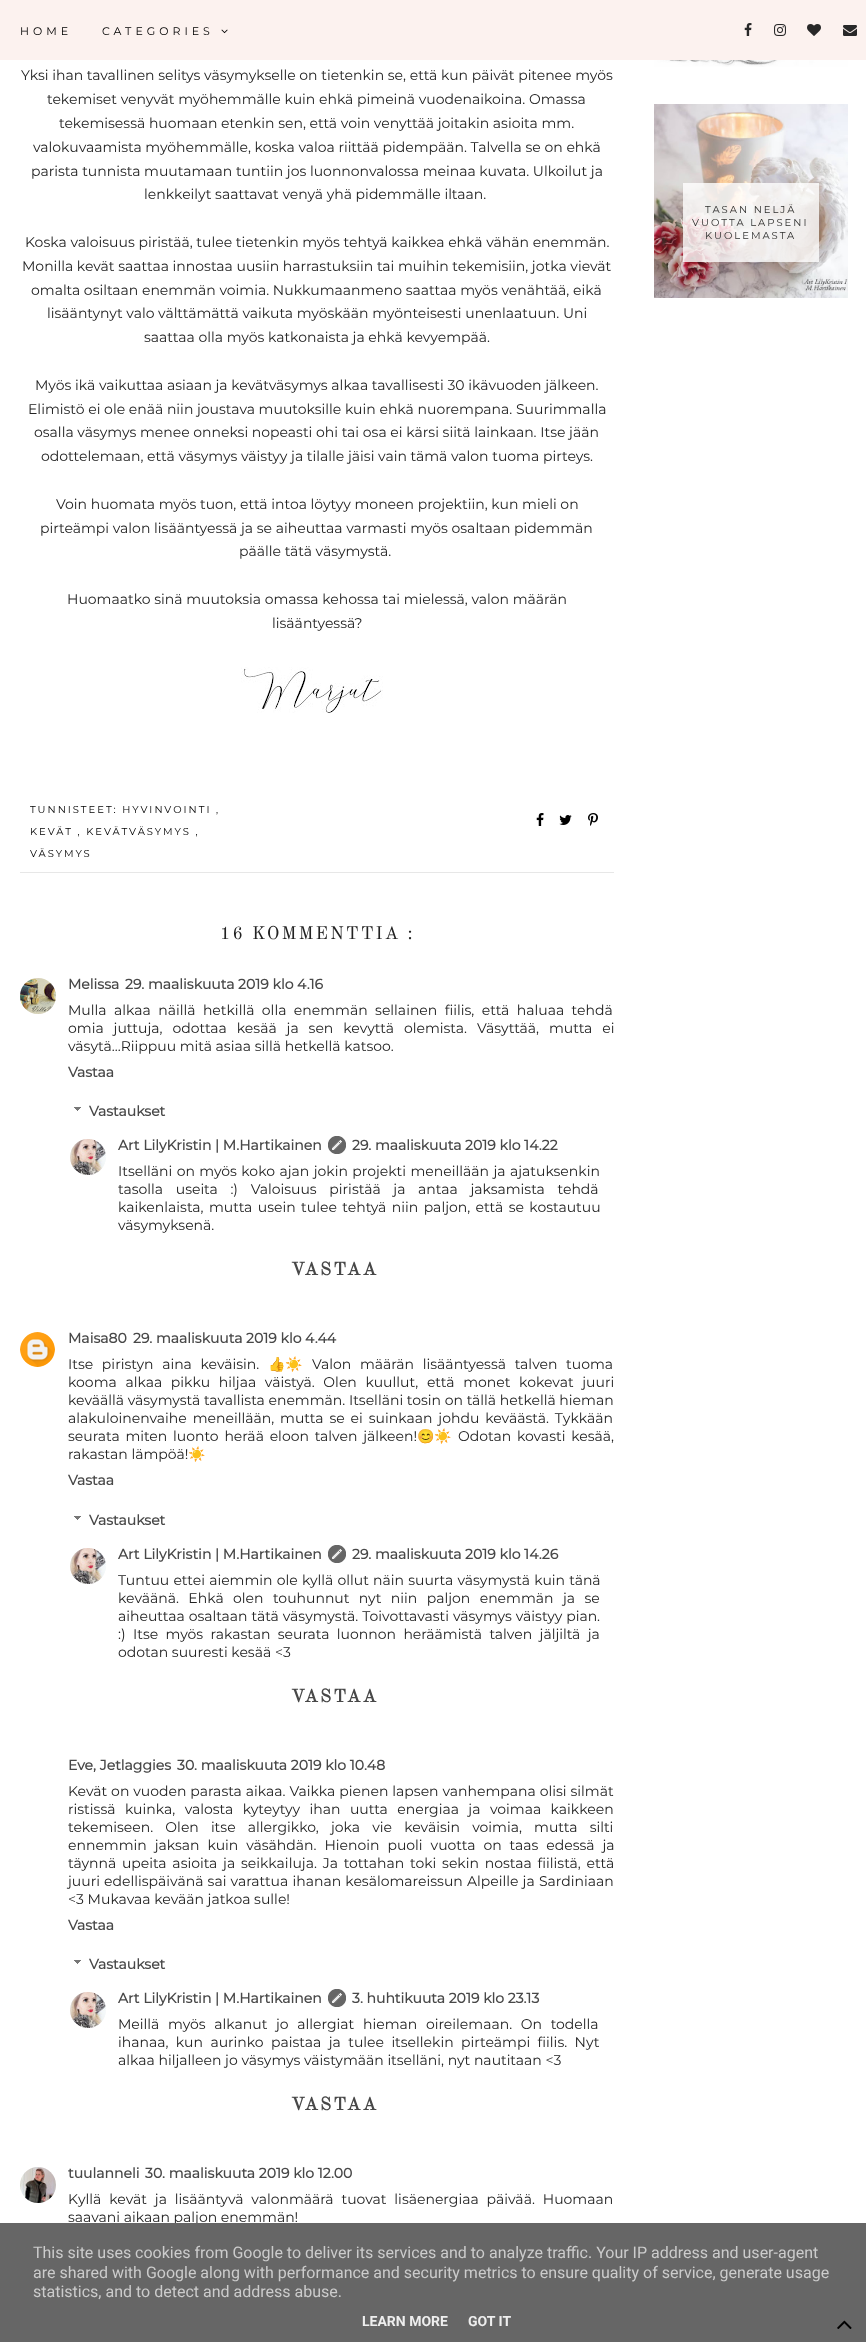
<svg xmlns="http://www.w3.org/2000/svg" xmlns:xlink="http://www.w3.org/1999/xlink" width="866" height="2342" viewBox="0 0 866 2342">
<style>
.cls-1{font:100 11px Montserrat;letter-spacing:4px;fill:#000000}
.cls-2{font:100 14px Montserrat;fill:#222222}
.cls-3{font:100 10px Montserrat;letter-spacing:2px;fill:#000000}
.cls-4{font:18px Old Standard TT;letter-spacing:2px;fill:#222222}
.cls-5{font:bold 14px Montserrat;fill:#484848}
.cls-6{font:bold 18px Old Standard TT;letter-spacing:2px;fill:#484848}
.cls-7{font:14px Noto Color Emoji;fill:#222222}
.cls-8{font:100 10px Montserrat;letter-spacing:2px;fill:#30302f}
.cls-9{font:16px Roboto;fill:#cccccc}
.cls-10{font:bold 14px Roboto;fill:#eeeeee}
</style>
<rect width="100%" height="100%" fill="#ffffff"/>
<rect fill="#fcf2ef" x="0" y="0" width="866" height="60"/>
<image xlink:href="image0.png" x="221" y="29" width="7" height="5"/>
<image xlink:href="image1.png" x="744" y="23" width="8" height="13"/>
<image xlink:href="image2.png" x="774" y="24" width="12" height="12"/>
<image xlink:href="image3.png" x="807" y="24" width="14" height="12"/>
<image xlink:href="image4.png" x="843" y="25" width="14" height="11"/>
<image xlink:href="image5.png" x="241" y="667" width="142" height="46"/>
<rect fill="#e7e7e7" x="20" y="872" width="594" height="1"/>
<image xlink:href="image6.png" x="536" y="813" width="8" height="13"/>
<image xlink:href="image7.png" x="559" y="815" width="13" height="10"/>
<image xlink:href="image8.png" x="588" y="813" width="10" height="13"/>
<image xlink:href="image9.png" x="20" y="978" width="36" height="36"/>
<image xlink:href="image10.png" x="74" y="1107" width="7" height="4"/>
<image xlink:href="image11.png" x="70" y="1139" width="36" height="36"/>
<image xlink:href="image12.png" x="328" y="1136" width="18" height="18"/>
<image xlink:href="image13.png" x="20" y="1332" width="35" height="35"/>
<image xlink:href="image10.png" x="74" y="1516" width="7" height="4"/>
<image xlink:href="image11.png" x="70" y="1548" width="36" height="36"/>
<image xlink:href="image12.png" x="328" y="1545" width="18" height="18"/>
<image xlink:href="image10.png" x="74" y="1960" width="7" height="4"/>
<image xlink:href="image11.png" x="70" y="1992" width="36" height="36"/>
<image xlink:href="image12.png" x="328" y="1989" width="18" height="18"/>
<image xlink:href="image14.png" x="20" y="2167" width="36" height="36"/>
<image xlink:href="image15.png" x="654" y="60" width="194" height="7"/>
<image xlink:href="image16.png" x="654" y="104" width="194" height="194"/>
<rect fill="#ffffff" fill-opacity="0.8" x="683" y="183" width="136" height="79"/>
<text class="cls-1" x="20" y="35">HOME</text>
<text class="cls-1" x="102" y="35">CATEGORIES</text>
<text class="cls-2" x="21" y="80">Yksi ihan tavallinen selitys väsymykselle on tietenkin se, että kun päivät pitenee myös</text>
<text class="cls-2" x="47" y="104">tekemiset venyvät myöhemmälle kuin ehkä pimeinä vuodenaikoina. Omassa</text>
<text class="cls-2" x="59" y="128">tekemisessä huomaan etenkin sen, että voin venyttää joitakin asioita mm.</text>
<text class="cls-2" x="33" y="152">valokuvaamista myöhemmälle, koska valoa riittää pidempään. Talvella se on ehkä</text>
<text class="cls-2" x="31" y="176">parista tunnista muutamaan tuntiin jos luonnonvalossa meinaa kuvata. Ulkoilut ja</text>
<text class="cls-2" x="144" y="199">lenkkeilyt saattavat venyä yhä pidemmälle iltaan.</text>
<text class="cls-2" x="25" y="247">Koska valoisuus piristää, tulee tietenkin myös tehtyä kaikkea ehkä vähän enemmän.</text>
<text class="cls-2" x="22" y="271">Monilla kevät saattaa innostaa uusiin harrastuksiin tai muihin tekemisiin, jotka vievät</text>
<text class="cls-2" x="31" y="295">omalta osiltaan enemmän voimia. Nukkumaanmeno saattaa myös venähtää, eikä</text>
<text class="cls-2" x="47" y="318">lisääntynyt valo välttämättä vaikuta myöskään myönteisesti unenlaatuun. Uni</text>
<text class="cls-2" x="144" y="342">saattaa olla myös katkonaista ja ehkä kevyempää.</text>
<text class="cls-2" x="35" y="390">Myös ikä vaikuttaa asiaan ja kevätväsymys alkaa tavallisesti 30 ikävuoden jälkeen.</text>
<text class="cls-2" x="28" y="414">Elimistö ei ole enää niin joustava muutoksille kuin ehkä nuorempana. Suurimmalla</text>
<text class="cls-2" x="34" y="437">osalla väsymys menee onneksi nopeasti ohi tai osa ei kärsi siitä lainkaan. Itse jään</text>
<text class="cls-2" x="41" y="461">odottelemaan, että väsymys väistyy ja tilalle jäisi vain tämä valon tuoma pirteys.</text>
<text class="cls-2" x="56" y="509">Voin huomata myös tuon, että intoa löytyy moneen projektiin, kun mieli on</text>
<text class="cls-2" x="40" y="533">pirteämpi valon lisääntyessä ja se aiheuttaa varmasti myös osaltaan pidemmän</text>
<text class="cls-2" x="239" y="556">päälle tätä väsymystä.</text>
<text class="cls-2" x="67" y="604">Huomaatko sinä muutoksia omassa kehossa tai mielessä, valon määrän</text>
<text class="cls-2" x="272" y="628">lisääntyessä?</text>
<text class="cls-3" x="30" y="813">TUNNISTEET: HYVINVOINTI ,</text>
<text class="cls-3" x="30" y="835">KEVÄT , KEVÄTVÄSYMYS ,</text>
<text class="cls-3" x="30" y="857">VÄSYMYS</text>
<text class="cls-4" x="220" y="939">16 KOMMENTTIA :</text>
<text class="cls-5" x="68" y="989">Melissa</text>
<text class="cls-5" x="125" y="989">29. maaliskuuta 2019 klo 4.16</text>
<text class="cls-2"><tspan x="68" y="1015" word-spacing="3.75">Mulla alkaa näillä hetkillä olla enemmän sellainen fiilis, että haluaa tehdä</tspan><tspan x="68" y="1033" word-spacing="6.25">omia juttuja, odottaa kesää ja sen kevyttä olemista. Väsyttää, mutta ei</tspan><tspan x="68" y="1051">väsytä...Riippuu mitä asiaa sillä hetkellä katsoo.</tspan></text>
<text class="cls-5" x="68" y="1077">Vastaa</text>
<text class="cls-5" x="89" y="1116">Vastaukset</text>
<text class="cls-5" x="118" y="1150">Art LilyKristin | M.Hartikainen</text>
<text class="cls-5" x="352" y="1150">29. maaliskuuta 2019 klo 14.22</text>
<text class="cls-2"><tspan x="118" y="1176" word-spacing="0.75">Itselläni on myös koko ajan jokin projekti meneillään ja ajatuksenkin</tspan><tspan x="118" y="1194" word-spacing="9">tasolla useita :) Valoisuus piristää ja antaa jaksamista tehdä</tspan><tspan x="118" y="1212" word-spacing="1.75">kaikenlaista, mutta usein tulee tehtyä niin paljon, että se kostautuu</tspan><tspan x="118" y="1230">väsymyksenä.</tspan></text>
<text class="cls-6" x="291" y="1275">VASTAA</text>
<text class="cls-5" x="68" y="1343">Maisa80</text>
<text class="cls-5" x="133" y="1343">29. maaliskuuta 2019 klo 4.44</text>
<text class="cls-2" x="68" y="1369" word-spacing="5">Itse piristyn aina keväisin.</text>
<text class="cls-7" x="268" y="1369">👍☀️</text>
<text class="cls-2" x="312" y="1369" word-spacing="5">Valon määrän lisääntyessä talven tuoma</text>
<text class="cls-2"><tspan x="68" y="1387" word-spacing="5">kooma alkaa pikku hiljaa väistyä. Olen kuullut, että monet kokevat juuri</tspan><tspan x="68" y="1405">keväällä väsymystä tavallista enemmän. Itselläni tosin on tällä hetkellä hieman</tspan><tspan x="68" y="1423" word-spacing="2.25">alakuloinenvaihe meneillään, mutta se ei suinkaan johdu keväästä. Tykkään</tspan><tspan x="68" y="1441" word-spacing="2.1">seurata miten luonto herää eloon talven jälkeen!</tspan></text>
<text class="cls-7" x="417" y="1441">😊☀️</text>
<text class="cls-2" x="458" y="1441" word-spacing="2.1">Odotan kovasti kesää,</text>
<text class="cls-2" x="68" y="1459">rakastan lämpöä!</text>
<text class="cls-7" x="188" y="1459">☀️</text>
<text class="cls-5" x="68" y="1485">Vastaa</text>
<text class="cls-5" x="89" y="1525">Vastaukset</text>
<text class="cls-5" x="118" y="1559">Art LilyKristin | M.Hartikainen</text>
<text class="cls-5" x="352" y="1559">29. maaliskuuta 2019 klo 14.26</text>
<text class="cls-2"><tspan x="118" y="1585" word-spacing="0.5">Tuntuu ettei aiemmin ole kyllä ollut näin suurta väsymystä kuin tänä</tspan><tspan x="118" y="1603" word-spacing="5.75">keväänä. Ehkä olen touhunnut nyt niin paljon enemmän ja se</tspan><tspan x="118" y="1621" word-spacing="0.25">aiheuttaa osaltaan tätä väsymystä. Toivottavasti väsymys väistyy pian.</tspan><tspan x="118" y="1639" word-spacing="3.75">:) Itse myös rakastan seurata luonnon heräämistä talven jäljiltä ja</tspan><tspan x="118" y="1657">odotan suuresti kesää &lt;3</tspan></text>
<text class="cls-6" x="291" y="1702">VASTAA</text>
<text class="cls-5" x="68" y="1770">Eve, Jetlaggies</text>
<text class="cls-5" x="177" y="1770">30. maaliskuuta 2019 klo 10.48</text>
<text class="cls-2"><tspan x="68" y="1796" word-spacing="0.25">Kevät on vuoden parasta aikaa. Vaikka pienen lapsen vanhempana olisi silmät</tspan><tspan x="68" y="1814" word-spacing="5.75">ristissä kuinka, valosta kyteytyy ihan uutta energiaa ja voimaa kaikkeen</tspan><tspan x="68" y="1832" word-spacing="8.5">tekemiseen. Olen itse allergikko, joka vie keväisin voimia, mutta silti</tspan><tspan x="68" y="1850" word-spacing="4.25">ennemmin jaksan kuin väsähdän. Hienoin puoli vuotta on taas edessä ja</tspan><tspan x="68" y="1868" word-spacing="2.1">täynnä upeita asioita ja seikkailuja. Ja tottahan toki sekin nostaa fiilistä, että</tspan><tspan x="68" y="1886" word-spacing="0.5">juuri edellispäivänä sai varattua ihanan kesälomareissun Alpeille ja Sardiniaan</tspan><tspan x="68" y="1904">&lt;3 Mukavaa kevään jatkoa sulle!</tspan></text>
<text class="cls-5" x="68" y="1930">Vastaa</text>
<text class="cls-5" x="89" y="1969">Vastaukset</text>
<text class="cls-5" x="118" y="2003">Art LilyKristin | M.Hartikainen</text>
<text class="cls-5" x="352" y="2003">3. huhtikuuta 2019 klo 23.13</text>
<text class="cls-2"><tspan x="118" y="2029" word-spacing="5">Meillä myös alkanut jo allergiat hieman oireilemaan. On todella</tspan><tspan x="118" y="2047" word-spacing="3.75">ihanaa, kun aurinko paistaa ja tulee itsellekin pirteämpi fiilis. Nyt</tspan><tspan x="118" y="2065">alkaa hiljalleen jo väsymys väistymään itselläni, nyt nautitaan &lt;3</tspan></text>
<text class="cls-6" x="291" y="2110">VASTAA</text>
<text class="cls-5" x="68" y="2178">tuulanneli</text>
<text class="cls-5" x="145" y="2178">30. maaliskuuta 2019 klo 12.00</text>
<text class="cls-2"><tspan x="68" y="2204" word-spacing="4.25">Kyllä kevät ja lisääntyvä valonmäärä tuovat lisäenergiaa päivää. Huomaan</tspan><tspan x="68" y="2222">saavani aikaan paljon enemmän!</tspan></text>
<text class="cls-8" x="705" y="213">TASAN NELJÄ</text>
<text class="cls-8" x="692" y="226">VUOTTA LAPSENI</text>
<text class="cls-8" x="705" y="239">KUOLEMASTA</text>
<rect fill="#666666" x="0" y="2223" width="866" height="119"/>
<text class="cls-9"><tspan x="33" y="2258">This site uses cookies from Google to deliver its services and to analyze traffic. Your IP address and user-agent</tspan><tspan x="33" y="2278">are shared with Google along with performance and security metrics to ensure quality of service, generate usage</tspan><tspan x="33" y="2297">statistics, and to detect and address abuse.</tspan></text>
<text class="cls-10" x="362" y="2326">LEARN MORE</text>
<text class="cls-10" x="468" y="2326">GOT IT</text>
<image xlink:href="image17.png" x="837" y="2320" width="15" height="9"/>
</svg>
